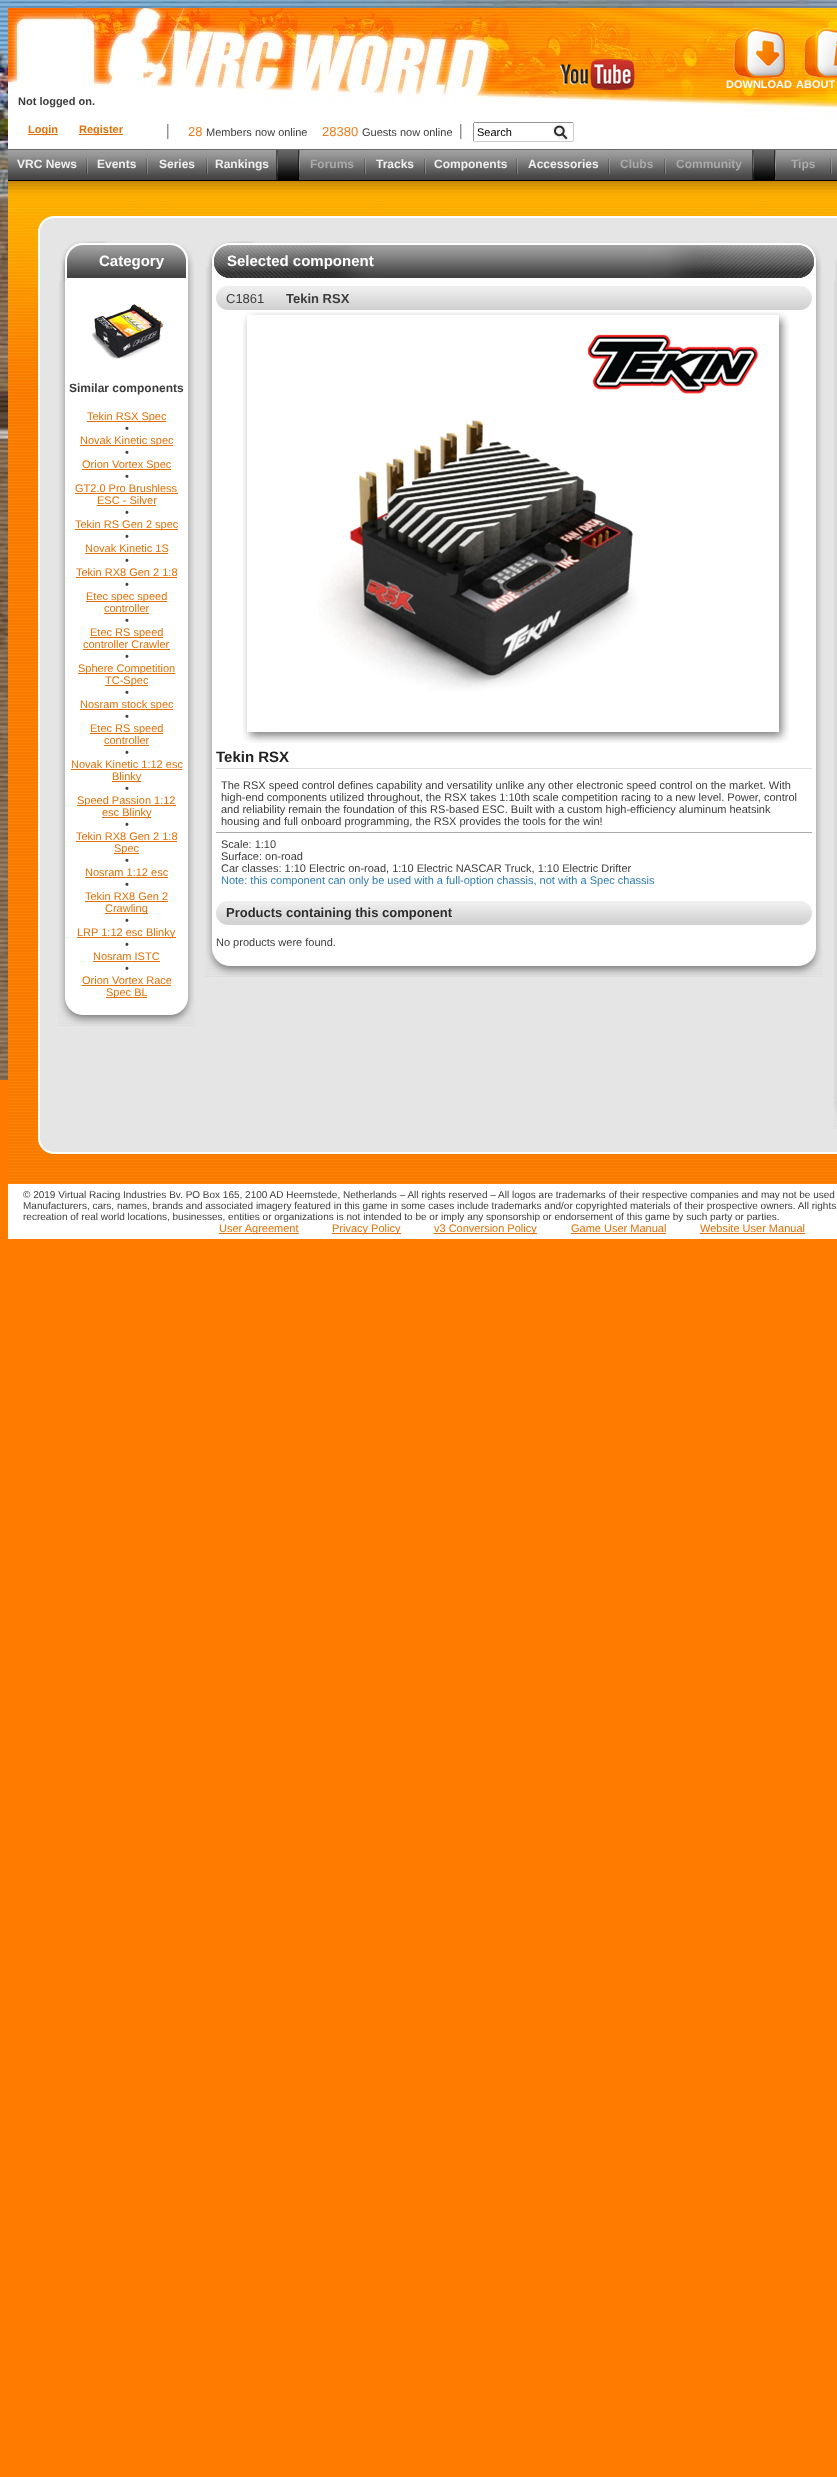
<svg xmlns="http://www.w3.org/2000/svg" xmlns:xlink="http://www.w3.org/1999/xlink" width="837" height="2477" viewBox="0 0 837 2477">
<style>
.cls-1{font:bold 11px Liberation Sans;fill:#ffffff}
.cls-2{font:bold 11px Liberation Sans;fill:#3c3c3c}
.cls-3{font:bold 11px Liberation Sans;fill:#e07109}
.cls-4{font:13px Liberation Sans;fill:#ee7e1c}
.cls-5{font:11px Liberation Sans;fill:#3c3c3c}
.cls-6{font:11px Liberation Sans;fill:#000000}
.cls-7{font:bold 12px Liberation Sans;fill:#efefef}
.cls-8{font:bold 12px Liberation Sans;fill:#aaaaaa}
.cls-9{font:bold 15px Liberation Sans;fill:#ffffff}
.cls-10{font:bold 12px Liberation Sans;fill:#3c3c3c}
.cls-11{font:11px Liberation Sans;fill:#e07109}
.cls-12{font:13px Liberation Sans;fill:#3c3c3c}
.cls-13{font:bold 13px Liberation Sans;fill:#3c3c3c}
.cls-14{font:bold 15px Liberation Sans;fill:#222222}
.cls-15{font:11px Liberation Sans;fill:#2f7cb2}
.cls-16{font:bold 13px Liberation Sans;fill:#2d2d2d}
.cls-17{font:10px Liberation Sans;fill:#3c3c3c}
</style>
<rect width="100%" height="100%" fill="#ff7b00"/>
<image xlink:href="image0.png" x="0" y="0" width="837" height="1080"/>
<image xlink:href="image1.png" x="8" y="8" width="829" height="141"/>
<image xlink:href="image2.png" x="560" y="59" width="75" height="31"/>
<image xlink:href="image3.png" x="733" y="28" width="53" height="50"/>
<image xlink:href="image4.png" x="803" y="28" width="34" height="50"/>
<image xlink:href="image5.png" x="167" y="121" width="410" height="22"/>
<rect fill="#e07109" x="28" y="134" width="30" height="1"/>
<rect fill="#e07109" x="79" y="134" width="44" height="1"/>
<image xlink:href="image6.png" x="553" y="124" width="15" height="16"/>
<image xlink:href="image7.png" x="278" y="150" width="496" height="30"/>
<rect fill="#686868" x="8" y="149" width="829" height="1"/>
<rect fill="#000000" x="8" y="180" width="829" height="1"/>
<image xlink:href="image8.png" x="8" y="150" width="78" height="30"/>
<image xlink:href="image9.png" x="86" y="150" width="2" height="30"/>
<image xlink:href="image10.png" x="88" y="150" width="58" height="30"/>
<image xlink:href="image9.png" x="146" y="150" width="2" height="30"/>
<image xlink:href="image10.png" x="148" y="150" width="58" height="30"/>
<image xlink:href="image9.png" x="206" y="150" width="2" height="30"/>
<image xlink:href="image11.png" x="208" y="150" width="68" height="30"/>
<image xlink:href="image12.png" x="276" y="150" width="2" height="30"/>
<image xlink:href="image13.png" x="298" y="150" width="2" height="30"/>
<image xlink:href="image14.png" x="300" y="150" width="64" height="30"/>
<image xlink:href="image9.png" x="364" y="150" width="2" height="30"/>
<image xlink:href="image10.png" x="366" y="150" width="58" height="30"/>
<image xlink:href="image9.png" x="424" y="150" width="2" height="30"/>
<image xlink:href="image15.png" x="426" y="150" width="90" height="30"/>
<image xlink:href="image9.png" x="516" y="150" width="2" height="30"/>
<image xlink:href="image15.png" x="518" y="150" width="90" height="30"/>
<image xlink:href="image9.png" x="608" y="150" width="2" height="30"/>
<image xlink:href="image16.png" x="610" y="150" width="54" height="30"/>
<image xlink:href="image9.png" x="664" y="150" width="2" height="30"/>
<image xlink:href="image17.png" x="666" y="150" width="86" height="30"/>
<image xlink:href="image12.png" x="752" y="150" width="2" height="30"/>
<image xlink:href="image13.png" x="774" y="150" width="2" height="30"/>
<image xlink:href="image16.png" x="776" y="150" width="54" height="30"/>
<image xlink:href="image9.png" x="830" y="150" width="2" height="30"/>
<image xlink:href="image18.png" x="832" y="150" width="5" height="30"/>
<image xlink:href="image19.png" x="8" y="389" width="829" height="795"/>
<image xlink:href="image20.png" x="8" y="181" width="829" height="208"/>
<image xlink:href="image21.png" x="38" y="216" width="799" height="15"/>
<image xlink:href="image22.png" x="38" y="231" width="799" height="908"/>
<image xlink:href="image23.png" x="60" y="241" width="134" height="40"/>
<image xlink:href="image24.png" x="59" y="281" width="135" height="717"/>
<image xlink:href="image25.png" x="91" y="303" width="73" height="56"/>
<rect fill="#e07109" x="87" y="421" width="79" height="1"/>
<rect fill="#e07109" x="80" y="445" width="93" height="1"/>
<rect fill="#e07109" x="82" y="469" width="89" height="1"/>
<rect fill="#e07109" x="75" y="493" width="103" height="1"/>
<rect fill="#e07109" x="97" y="505" width="59" height="1"/>
<rect fill="#e07109" x="75" y="529" width="103" height="1"/>
<rect fill="#e07109" x="85" y="553" width="83" height="1"/>
<rect fill="#e07109" x="76" y="577" width="101" height="1"/>
<rect fill="#e07109" x="86" y="601" width="81" height="1"/>
<rect fill="#e07109" x="104" y="613" width="45" height="1"/>
<rect fill="#e07109" x="90" y="637" width="73" height="1"/>
<rect fill="#e07109" x="83" y="649" width="87" height="1"/>
<rect fill="#e07109" x="78" y="673" width="97" height="1"/>
<rect fill="#e07109" x="105" y="685" width="43" height="1"/>
<rect fill="#e07109" x="80" y="709" width="93" height="1"/>
<rect fill="#e07109" x="90" y="733" width="73" height="1"/>
<rect fill="#e07109" x="104" y="745" width="45" height="1"/>
<rect fill="#e07109" x="71" y="769" width="111" height="1"/>
<rect fill="#e07109" x="112" y="781" width="29" height="1"/>
<rect fill="#e07109" x="77" y="805" width="99" height="1"/>
<rect fill="#e07109" x="102" y="817" width="49" height="1"/>
<rect fill="#e07109" x="76" y="841" width="101" height="1"/>
<rect fill="#e07109" x="114" y="853" width="25" height="1"/>
<rect fill="#e07109" x="85" y="877" width="83" height="1"/>
<rect fill="#e07109" x="85" y="901" width="83" height="1"/>
<rect fill="#e07109" x="105" y="913" width="43" height="1"/>
<rect fill="#e07109" x="77" y="937" width="99" height="1"/>
<rect fill="#e07109" x="93" y="961" width="67" height="1"/>
<rect fill="#e07109" x="82" y="985" width="89" height="1"/>
<rect fill="#e07109" x="106" y="997" width="41" height="1"/>
<image xlink:href="image26.png" x="58" y="998" width="137" height="28"/>
<image xlink:href="image27.png" x="206" y="241" width="616" height="40"/>
<image xlink:href="image28.png" x="206" y="281" width="616" height="668"/>
<image xlink:href="image29.png" x="216" y="286" width="596" height="24"/>
<image xlink:href="image30.png" x="243" y="312" width="546" height="13"/>
<image xlink:href="image31.png" x="243" y="325" width="546" height="398"/>
<image xlink:href="image32.png" x="318" y="334" width="441" height="357"/>
<image xlink:href="image33.png" x="243" y="723" width="546" height="20"/>
<rect fill="#dedede" x="216" y="768" width="596" height="1"/>
<rect fill="#aaaaaa" x="216" y="832" width="596" height="1"/>
<image xlink:href="image29.png" x="216" y="901" width="596" height="24"/>
<image xlink:href="image34.png" x="205" y="949" width="618" height="28"/>
<image xlink:href="image35.png" x="835" y="259" width="2" height="22"/>
<rect fill="#dadada" x="834" y="281" width="3" height="820"/>
<image xlink:href="image36.png" x="833" y="1101" width="4" height="28"/>
<image xlink:href="image37.png" x="38" y="1139" width="799" height="15"/>
<rect fill="#ffffff" x="8" y="1184" width="829" height="55"/>
<rect fill="#e07109" x="219" y="1233" width="80" height="1"/>
<rect fill="#e07109" x="332" y="1233" width="69" height="1"/>
<rect fill="#e07109" x="434" y="1233" width="103" height="1"/>
<rect fill="#e07109" x="571" y="1233" width="95" height="1"/>
<rect fill="#e07109" x="700" y="1233" width="105" height="1"/>
<text class="cls-1" x="726" y="88">DOWNLOAD</text>
<text class="cls-1" x="796" y="88">ABOUT</text>
<text class="cls-2" x="18" y="105">Not logged on.</text>
<text class="cls-3" x="28" y="133">Login</text>
<text class="cls-3" x="79" y="133">Register</text>
<text class="cls-4" x="188" y="136">28</text>
<text class="cls-5" x="206" y="136">Members now online</text>
<text class="cls-4" x="322" y="136">28380</text>
<text class="cls-5" x="362" y="136">Guests now online</text>
<text class="cls-6" x="477" y="136">Search</text>
<text class="cls-7" x="17" y="168">VRC News</text>
<text class="cls-7" x="97" y="168">Events</text>
<text class="cls-7" x="159" y="168">Series</text>
<text class="cls-7" x="215" y="168">Rankings</text>
<text class="cls-8" x="310" y="168">Forums</text>
<text class="cls-7" x="376" y="168">Tracks</text>
<text class="cls-7" x="434" y="168">Components</text>
<text class="cls-7" x="528" y="168">Accessories</text>
<text class="cls-8" x="620" y="168">Clubs</text>
<text class="cls-8" x="676" y="168">Community</text>
<text class="cls-8" x="791" y="168">Tips</text>
<text class="cls-9" x="99" y="266">Category</text>
<text class="cls-10" x="69" y="392">Similar components</text>
<text class="cls-11" x="87" y="420">Tekin RSX Spec</text>
<text class="cls-5" x="125" y="432">•</text>
<text class="cls-11" x="80" y="444">Novak Kinetic spec</text>
<text class="cls-5" x="125" y="456">•</text>
<text class="cls-11" x="82" y="468">Orion Vortex Spec</text>
<text class="cls-5" x="125" y="480">•</text>
<text class="cls-11" x="75" y="492">GT2.0 Pro Brushless</text>
<text class="cls-11" x="97" y="504">ESC - Silver</text>
<text class="cls-5" x="125" y="516">•</text>
<text class="cls-11" x="75" y="528">Tekin RS Gen 2 spec</text>
<text class="cls-5" x="125" y="540">•</text>
<text class="cls-11" x="85" y="552">Novak Kinetic 1S</text>
<text class="cls-5" x="125" y="564">•</text>
<text class="cls-11" x="76" y="576">Tekin RX8 Gen 2 1:8</text>
<text class="cls-5" x="125" y="588">•</text>
<text class="cls-11" x="86" y="600">Etec spec speed</text>
<text class="cls-11" x="104" y="612">controller</text>
<text class="cls-5" x="125" y="624">•</text>
<text class="cls-11" x="90" y="636">Etec RS speed</text>
<text class="cls-11" x="83" y="648">controller Crawler</text>
<text class="cls-5" x="125" y="660">•</text>
<text class="cls-11" x="78" y="672">Sphere Competition</text>
<text class="cls-11" x="105" y="684">TC-Spec</text>
<text class="cls-5" x="125" y="696">•</text>
<text class="cls-11" x="80" y="708">Nosram stock spec</text>
<text class="cls-5" x="125" y="720">•</text>
<text class="cls-11" x="90" y="732">Etec RS speed</text>
<text class="cls-11" x="104" y="744">controller</text>
<text class="cls-5" x="125" y="756">•</text>
<text class="cls-11" x="71" y="768">Novak Kinetic 1:12 esc</text>
<text class="cls-11" x="112" y="780">Blinky</text>
<text class="cls-5" x="125" y="792">•</text>
<text class="cls-11" x="77" y="804">Speed Passion 1:12</text>
<text class="cls-11" x="102" y="816">esc Blinky</text>
<text class="cls-5" x="125" y="828">•</text>
<text class="cls-11" x="76" y="840">Tekin RX8 Gen 2 1:8</text>
<text class="cls-11" x="114" y="852">Spec</text>
<text class="cls-5" x="125" y="864">•</text>
<text class="cls-11" x="85" y="876">Nosram 1:12 esc</text>
<text class="cls-5" x="125" y="888">•</text>
<text class="cls-11" x="85" y="900">Tekin RX8 Gen 2</text>
<text class="cls-11" x="105" y="912">Crawling</text>
<text class="cls-5" x="125" y="924">•</text>
<text class="cls-11" x="77" y="936">LRP 1:12 esc Blinky</text>
<text class="cls-5" x="125" y="948">•</text>
<text class="cls-11" x="93" y="960">Nosram ISTC</text>
<text class="cls-5" x="125" y="972">•</text>
<text class="cls-11" x="82" y="984">Orion Vortex Race</text>
<text class="cls-11" x="106" y="996">Spec BL</text>
<text class="cls-9" x="227" y="266">Selected component</text>
<text class="cls-12" x="226" y="303">C1861</text>
<text class="cls-13" x="286" y="303">Tekin RSX</text>
<text class="cls-14" x="216" y="762">Tekin RSX</text>
<text class="cls-5"><tspan x="221" y="789">The RSX speed control defines capability and versatility unlike any other electronic speed control on the market. With</tspan><tspan x="221" y="801">high-end components utilized throughout, the RSX takes 1:10th scale competition racing to a new level. Power, control</tspan><tspan x="221" y="813">and reliability remain the foundation of this RS-based ESC. Built with a custom high-efficiency aluminum heatsink</tspan><tspan x="221" y="825">housing and full onboard programming, the RSX provides the tools for the win!</tspan></text>
<text class="cls-5"><tspan x="221" y="848">Scale: 1:10</tspan><tspan x="221" y="860">Surface: on-road</tspan><tspan x="221" y="872">Car classes: 1:10 Electric on-road, 1:10 Electric NASCAR Truck, 1:10 Electric Drifter</tspan></text>
<text class="cls-15" x="221" y="884">Note: this component can only be used with a full-option chassis, not with a Spec chassis</text>
<text class="cls-16" x="226" y="917">Products containing this component</text>
<text class="cls-5" x="216" y="946">No products were found.</text>
<text class="cls-17"><tspan x="23" y="1198">© 2019 Virtual Racing Industries Bv. PO Box 165, 2100 AD Heemstede, Netherlands – All rights reserved – All logos are trademarks of their respective companies and may not be used</tspan><tspan x="23" y="1209">Manufacturers, cars, names, brands and associated imagery featured in this game in some cases include trademarks and/or copyrighted materials of their prospective owners. All rights</tspan><tspan x="23" y="1220">recreation of real world locations, businesses, entities or organizations is not intended to be or imply any sponsorship or endorsement of this game by such party or parties.</tspan></text>
<text class="cls-11" x="219" y="1232">User Agreement</text>
<text class="cls-11" x="332" y="1232">Privacy Policy</text>
<text class="cls-11" x="434" y="1232">v3 Conversion Policy</text>
<text class="cls-11" x="571" y="1232">Game User Manual</text>
<text class="cls-11" x="700" y="1232">Website User Manual</text>
</svg>
